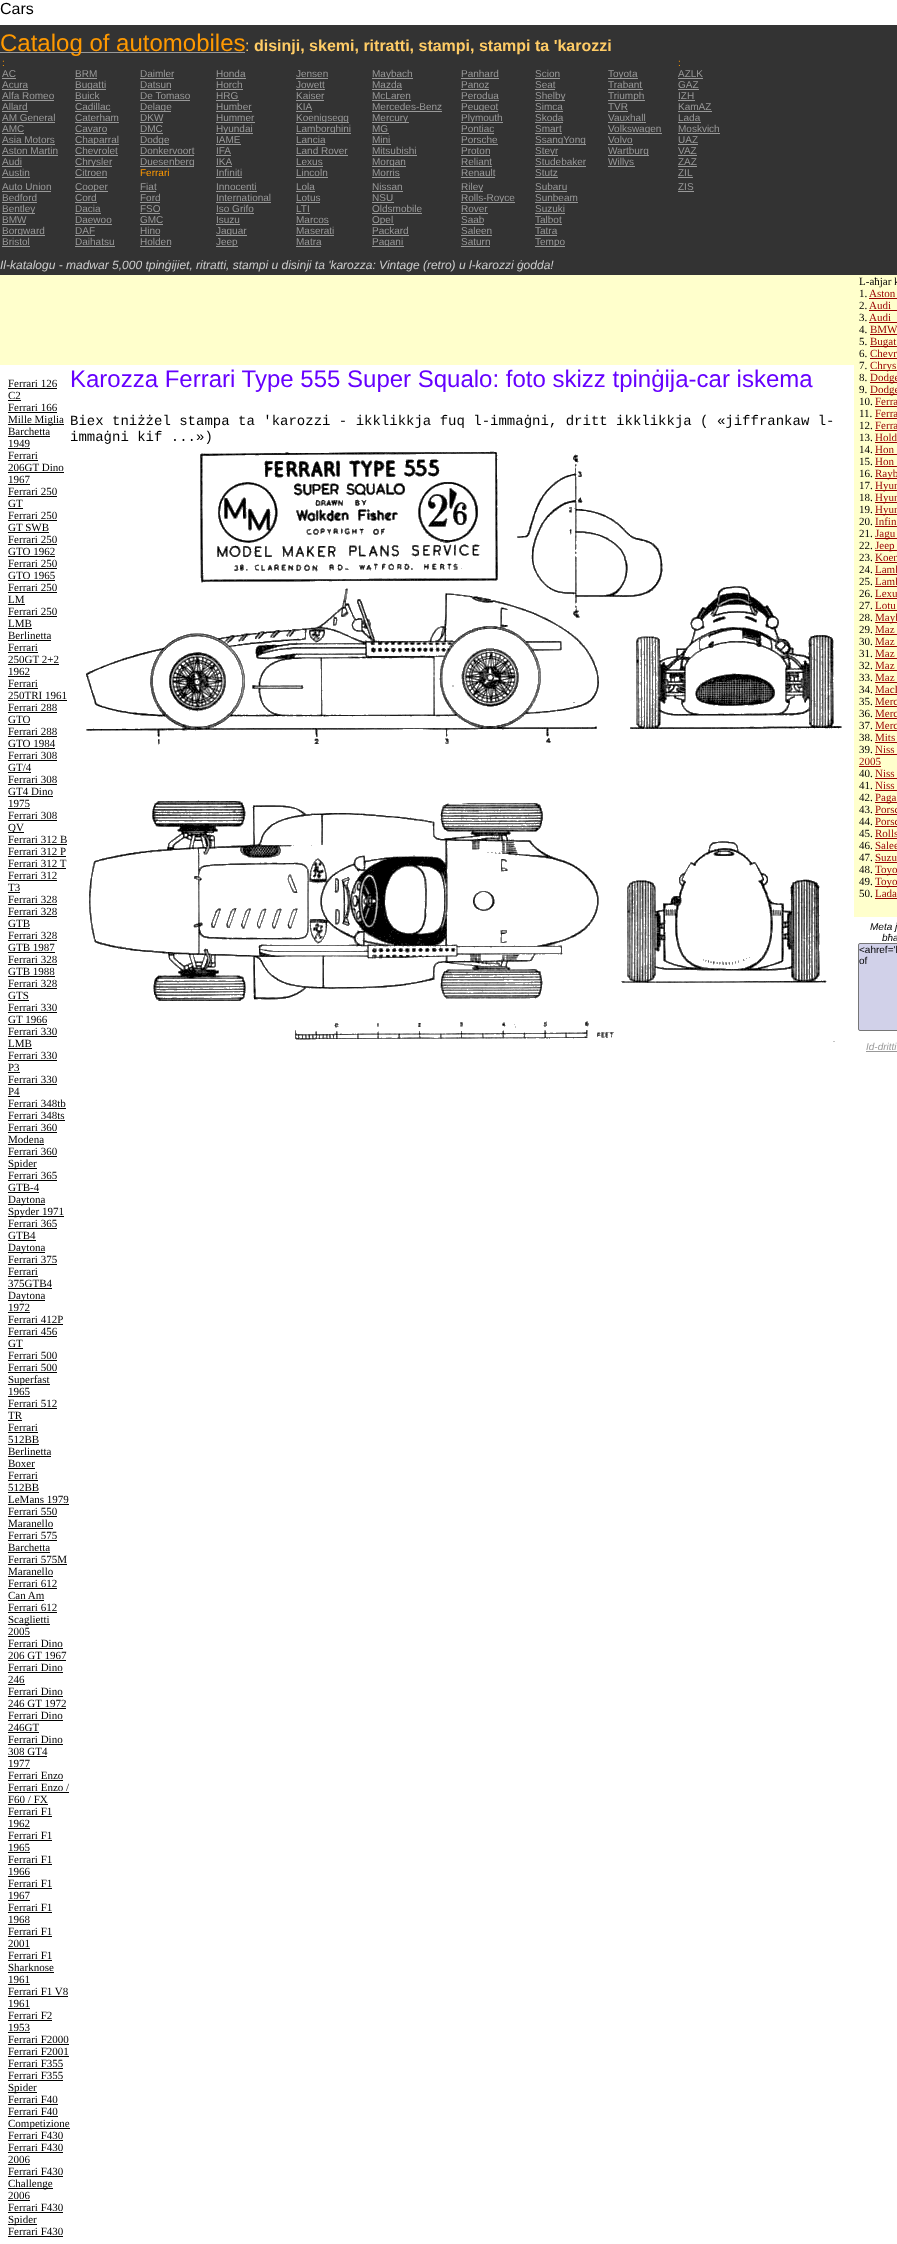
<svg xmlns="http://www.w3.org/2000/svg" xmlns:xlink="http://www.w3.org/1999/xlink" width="897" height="2244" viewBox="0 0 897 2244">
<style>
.cls-1{font:16px Liberation Sans;fill:#000000}
.cls-2{font:24px Liberation Sans;fill:#ff9900}
.cls-3{font:16px Liberation Sans;fill:#ffcc66}
.cls-4{font:bold 16px Liberation Sans;fill:#ffcc66}
.cls-5{font:10px Liberation Sans;fill:#ff9900}
.cls-6{font:10px Liberation Sans;fill:#999999}
.cls-7{font:italic 12px Liberation Sans;fill:#cccccc}
.cls-8{font:11px Liberation Serif;fill:#000000}
.cls-9{font:24px Liberation Sans;fill:#6600ff}
.cls-10{font:14px Liberation Mono;fill:#000000}
.cls-11{font:11px Liberation Serif;fill:#990000}
.cls-12{font:italic 10px Liberation Sans;fill:#000000}
.cls-13{font:10px Liberation Sans;fill:#000000}
.cls-14{font:italic 10px Liberation Sans;fill:#999999}
</style>
<rect width="100%" height="100%" fill="#ffffff"/>
<rect fill="#333333" x="0" y="25" width="897" height="250"/>
<rect fill="#999999" x="0" y="52" width="245" height="1"/>
<rect fill="#999999" x="2" y="78" width="14" height="1"/>
<rect fill="#999999" x="75" y="78" width="22" height="1"/>
<rect fill="#999999" x="140" y="78" width="34" height="1"/>
<rect fill="#999999" x="216" y="78" width="30" height="1"/>
<rect fill="#999999" x="296" y="78" width="32" height="1"/>
<rect fill="#999999" x="372" y="78" width="41" height="1"/>
<rect fill="#999999" x="461" y="78" width="38" height="1"/>
<rect fill="#999999" x="535" y="78" width="25" height="1"/>
<rect fill="#999999" x="608" y="78" width="30" height="1"/>
<rect fill="#999999" x="678" y="78" width="25" height="1"/>
<rect fill="#999999" x="2" y="89" width="26" height="1"/>
<rect fill="#999999" x="75" y="89" width="31" height="1"/>
<rect fill="#999999" x="140" y="89" width="31" height="1"/>
<rect fill="#999999" x="216" y="89" width="27" height="1"/>
<rect fill="#999999" x="296" y="89" width="29" height="1"/>
<rect fill="#999999" x="372" y="89" width="30" height="1"/>
<rect fill="#999999" x="461" y="89" width="28" height="1"/>
<rect fill="#999999" x="535" y="89" width="20" height="1"/>
<rect fill="#999999" x="608" y="89" width="35" height="1"/>
<rect fill="#999999" x="678" y="89" width="21" height="1"/>
<rect fill="#999999" x="2" y="100" width="52" height="1"/>
<rect fill="#999999" x="75" y="100" width="25" height="1"/>
<rect fill="#999999" x="140" y="100" width="50" height="1"/>
<rect fill="#999999" x="216" y="100" width="23" height="1"/>
<rect fill="#999999" x="296" y="100" width="28" height="1"/>
<rect fill="#999999" x="372" y="100" width="39" height="1"/>
<rect fill="#999999" x="461" y="100" width="38" height="1"/>
<rect fill="#999999" x="535" y="100" width="30" height="1"/>
<rect fill="#999999" x="608" y="100" width="37" height="1"/>
<rect fill="#999999" x="678" y="100" width="17" height="1"/>
<rect fill="#999999" x="2" y="111" width="26" height="1"/>
<rect fill="#999999" x="75" y="111" width="36" height="1"/>
<rect fill="#999999" x="140" y="111" width="31" height="1"/>
<rect fill="#999999" x="216" y="111" width="36" height="1"/>
<rect fill="#999999" x="296" y="111" width="16" height="1"/>
<rect fill="#999999" x="372" y="111" width="70" height="1"/>
<rect fill="#999999" x="461" y="111" width="37" height="1"/>
<rect fill="#999999" x="535" y="111" width="28" height="1"/>
<rect fill="#999999" x="608" y="111" width="20" height="1"/>
<rect fill="#999999" x="678" y="111" width="34" height="1"/>
<rect fill="#999999" x="2" y="122" width="53" height="1"/>
<rect fill="#999999" x="75" y="122" width="44" height="1"/>
<rect fill="#999999" x="140" y="122" width="23" height="1"/>
<rect fill="#999999" x="216" y="122" width="39" height="1"/>
<rect fill="#999999" x="296" y="122" width="53" height="1"/>
<rect fill="#999999" x="372" y="122" width="37" height="1"/>
<rect fill="#999999" x="461" y="122" width="42" height="1"/>
<rect fill="#999999" x="535" y="122" width="28" height="1"/>
<rect fill="#999999" x="608" y="122" width="38" height="1"/>
<rect fill="#999999" x="678" y="122" width="23" height="1"/>
<rect fill="#999999" x="2" y="133" width="22" height="1"/>
<rect fill="#999999" x="75" y="133" width="32" height="1"/>
<rect fill="#999999" x="140" y="133" width="23" height="1"/>
<rect fill="#999999" x="216" y="133" width="37" height="1"/>
<rect fill="#999999" x="296" y="133" width="55" height="1"/>
<rect fill="#999999" x="372" y="133" width="17" height="1"/>
<rect fill="#999999" x="461" y="133" width="33" height="1"/>
<rect fill="#999999" x="535" y="133" width="27" height="1"/>
<rect fill="#999999" x="608" y="133" width="54" height="1"/>
<rect fill="#999999" x="678" y="133" width="42" height="1"/>
<rect fill="#999999" x="2" y="144" width="53" height="1"/>
<rect fill="#999999" x="75" y="144" width="44" height="1"/>
<rect fill="#999999" x="140" y="144" width="29" height="1"/>
<rect fill="#999999" x="216" y="144" width="25" height="1"/>
<rect fill="#999999" x="296" y="144" width="29" height="1"/>
<rect fill="#999999" x="372" y="144" width="19" height="1"/>
<rect fill="#999999" x="461" y="144" width="37" height="1"/>
<rect fill="#999999" x="535" y="144" width="51" height="1"/>
<rect fill="#999999" x="608" y="144" width="25" height="1"/>
<rect fill="#999999" x="678" y="144" width="20" height="1"/>
<rect fill="#999999" x="2" y="155" width="56" height="1"/>
<rect fill="#999999" x="75" y="155" width="43" height="1"/>
<rect fill="#999999" x="140" y="155" width="54" height="1"/>
<rect fill="#999999" x="216" y="155" width="15" height="1"/>
<rect fill="#999999" x="296" y="155" width="52" height="1"/>
<rect fill="#999999" x="372" y="155" width="45" height="1"/>
<rect fill="#999999" x="461" y="155" width="29" height="1"/>
<rect fill="#999999" x="535" y="155" width="23" height="1"/>
<rect fill="#999999" x="608" y="155" width="41" height="1"/>
<rect fill="#999999" x="678" y="155" width="19" height="1"/>
<rect fill="#999999" x="2" y="166" width="20" height="1"/>
<rect fill="#999999" x="75" y="166" width="37" height="1"/>
<rect fill="#999999" x="140" y="166" width="54" height="1"/>
<rect fill="#999999" x="216" y="166" width="16" height="1"/>
<rect fill="#999999" x="296" y="166" width="27" height="1"/>
<rect fill="#999999" x="372" y="166" width="34" height="1"/>
<rect fill="#999999" x="461" y="166" width="31" height="1"/>
<rect fill="#999999" x="535" y="166" width="51" height="1"/>
<rect fill="#999999" x="608" y="166" width="27" height="1"/>
<rect fill="#999999" x="678" y="166" width="19" height="1"/>
<rect fill="#999999" x="2" y="177" width="28" height="1"/>
<rect fill="#999999" x="75" y="177" width="32" height="1"/>
<rect fill="#999999" x="216" y="177" width="26" height="1"/>
<rect fill="#999999" x="296" y="177" width="32" height="1"/>
<rect fill="#999999" x="372" y="177" width="28" height="1"/>
<rect fill="#999999" x="461" y="177" width="34" height="1"/>
<rect fill="#999999" x="535" y="177" width="23" height="1"/>
<rect fill="#999999" x="678" y="177" width="15" height="1"/>
<rect fill="#999999" x="2" y="191" width="49" height="1"/>
<rect fill="#999999" x="75" y="191" width="33" height="1"/>
<rect fill="#999999" x="140" y="191" width="16" height="1"/>
<rect fill="#999999" x="216" y="191" width="41" height="1"/>
<rect fill="#999999" x="296" y="191" width="19" height="1"/>
<rect fill="#999999" x="372" y="191" width="31" height="1"/>
<rect fill="#999999" x="461" y="191" width="22" height="1"/>
<rect fill="#999999" x="535" y="191" width="32" height="1"/>
<rect fill="#999999" x="678" y="191" width="16" height="1"/>
<rect fill="#999999" x="2" y="202" width="35" height="1"/>
<rect fill="#999999" x="75" y="202" width="22" height="1"/>
<rect fill="#999999" x="140" y="202" width="20" height="1"/>
<rect fill="#999999" x="216" y="202" width="55" height="1"/>
<rect fill="#999999" x="296" y="202" width="24" height="1"/>
<rect fill="#999999" x="372" y="202" width="22" height="1"/>
<rect fill="#999999" x="461" y="202" width="54" height="1"/>
<rect fill="#999999" x="535" y="202" width="43" height="1"/>
<rect fill="#999999" x="2" y="213" width="33" height="1"/>
<rect fill="#999999" x="75" y="213" width="26" height="1"/>
<rect fill="#999999" x="140" y="213" width="20" height="1"/>
<rect fill="#999999" x="216" y="213" width="38" height="1"/>
<rect fill="#999999" x="296" y="213" width="14" height="1"/>
<rect fill="#999999" x="372" y="213" width="50" height="1"/>
<rect fill="#999999" x="461" y="213" width="27" height="1"/>
<rect fill="#999999" x="535" y="213" width="30" height="1"/>
<rect fill="#999999" x="2" y="224" width="24" height="1"/>
<rect fill="#999999" x="75" y="224" width="37" height="1"/>
<rect fill="#999999" x="140" y="224" width="23" height="1"/>
<rect fill="#999999" x="216" y="224" width="24" height="1"/>
<rect fill="#999999" x="296" y="224" width="33" height="1"/>
<rect fill="#999999" x="372" y="224" width="22" height="1"/>
<rect fill="#999999" x="461" y="224" width="23" height="1"/>
<rect fill="#999999" x="535" y="224" width="27" height="1"/>
<rect fill="#999999" x="2" y="235" width="43" height="1"/>
<rect fill="#999999" x="75" y="235" width="20" height="1"/>
<rect fill="#999999" x="140" y="235" width="20" height="1"/>
<rect fill="#999999" x="216" y="235" width="31" height="1"/>
<rect fill="#999999" x="296" y="235" width="38" height="1"/>
<rect fill="#999999" x="372" y="235" width="37" height="1"/>
<rect fill="#999999" x="461" y="235" width="31" height="1"/>
<rect fill="#999999" x="535" y="235" width="22" height="1"/>
<rect fill="#999999" x="2" y="246" width="28" height="1"/>
<rect fill="#999999" x="75" y="246" width="40" height="1"/>
<rect fill="#999999" x="140" y="246" width="31" height="1"/>
<rect fill="#999999" x="216" y="246" width="22" height="1"/>
<rect fill="#999999" x="296" y="246" width="25" height="1"/>
<rect fill="#999999" x="372" y="246" width="32" height="1"/>
<rect fill="#999999" x="461" y="246" width="29" height="1"/>
<rect fill="#999999" x="535" y="246" width="30" height="1"/>
<rect fill="#000000" x="8" y="388" width="49" height="1"/>
<rect fill="#000000" x="8" y="400" width="13" height="1"/>
<rect fill="#000000" x="8" y="412" width="49" height="1"/>
<rect fill="#000000" x="8" y="424" width="56" height="1"/>
<rect fill="#000000" x="8" y="436" width="42" height="1"/>
<rect fill="#000000" x="8" y="448" width="22" height="1"/>
<rect fill="#000000" x="8" y="460" width="30" height="1"/>
<rect fill="#000000" x="8" y="472" width="56" height="1"/>
<rect fill="#000000" x="8" y="484" width="22" height="1"/>
<rect fill="#000000" x="8" y="496" width="49" height="1"/>
<rect fill="#000000" x="8" y="508" width="15" height="1"/>
<rect fill="#000000" x="8" y="520" width="49" height="1"/>
<rect fill="#000000" x="8" y="532" width="41" height="1"/>
<rect fill="#000000" x="8" y="544" width="49" height="1"/>
<rect fill="#000000" x="8" y="556" width="47" height="1"/>
<rect fill="#000000" x="8" y="568" width="49" height="1"/>
<rect fill="#000000" x="8" y="580" width="47" height="1"/>
<rect fill="#000000" x="8" y="592" width="49" height="1"/>
<rect fill="#000000" x="8" y="604" width="17" height="1"/>
<rect fill="#000000" x="8" y="616" width="49" height="1"/>
<rect fill="#000000" x="8" y="628" width="24" height="1"/>
<rect fill="#000000" x="8" y="640" width="43" height="1"/>
<rect fill="#000000" x="8" y="652" width="30" height="1"/>
<rect fill="#000000" x="8" y="664" width="51" height="1"/>
<rect fill="#000000" x="8" y="676" width="22" height="1"/>
<rect fill="#000000" x="8" y="688" width="30" height="1"/>
<rect fill="#000000" x="8" y="700" width="59" height="1"/>
<rect fill="#000000" x="8" y="712" width="49" height="1"/>
<rect fill="#000000" x="8" y="724" width="22" height="1"/>
<rect fill="#000000" x="8" y="736" width="49" height="1"/>
<rect fill="#000000" x="8" y="748" width="47" height="1"/>
<rect fill="#000000" x="8" y="760" width="49" height="1"/>
<rect fill="#000000" x="8" y="772" width="23" height="1"/>
<rect fill="#000000" x="8" y="784" width="49" height="1"/>
<rect fill="#000000" x="8" y="796" width="45" height="1"/>
<rect fill="#000000" x="8" y="808" width="22" height="1"/>
<rect fill="#000000" x="8" y="820" width="49" height="1"/>
<rect fill="#000000" x="8" y="832" width="16" height="1"/>
<rect fill="#000000" x="8" y="844" width="59" height="1"/>
<rect fill="#000000" x="8" y="856" width="58" height="1"/>
<rect fill="#000000" x="8" y="868" width="58" height="1"/>
<rect fill="#000000" x="8" y="880" width="49" height="1"/>
<rect fill="#000000" x="8" y="892" width="12" height="1"/>
<rect fill="#000000" x="8" y="904" width="49" height="1"/>
<rect fill="#000000" x="8" y="916" width="49" height="1"/>
<rect fill="#000000" x="8" y="928" width="22" height="1"/>
<rect fill="#000000" x="8" y="940" width="49" height="1"/>
<rect fill="#000000" x="8" y="952" width="47" height="1"/>
<rect fill="#000000" x="8" y="964" width="49" height="1"/>
<rect fill="#000000" x="8" y="976" width="47" height="1"/>
<rect fill="#000000" x="8" y="988" width="49" height="1"/>
<rect fill="#000000" x="8" y="1000" width="21" height="1"/>
<rect fill="#000000" x="8" y="1012" width="49" height="1"/>
<rect fill="#000000" x="8" y="1024" width="39" height="1"/>
<rect fill="#000000" x="8" y="1036" width="49" height="1"/>
<rect fill="#000000" x="8" y="1048" width="24" height="1"/>
<rect fill="#000000" x="8" y="1060" width="49" height="1"/>
<rect fill="#000000" x="8" y="1072" width="12" height="1"/>
<rect fill="#000000" x="8" y="1084" width="49" height="1"/>
<rect fill="#000000" x="8" y="1096" width="12" height="1"/>
<rect fill="#000000" x="8" y="1108" width="58" height="1"/>
<rect fill="#000000" x="8" y="1120" width="57" height="1"/>
<rect fill="#000000" x="8" y="1132" width="49" height="1"/>
<rect fill="#000000" x="8" y="1144" width="36" height="1"/>
<rect fill="#000000" x="8" y="1156" width="49" height="1"/>
<rect fill="#000000" x="8" y="1168" width="29" height="1"/>
<rect fill="#000000" x="8" y="1180" width="49" height="1"/>
<rect fill="#000000" x="8" y="1192" width="31" height="1"/>
<rect fill="#000000" x="8" y="1204" width="37" height="1"/>
<rect fill="#000000" x="8" y="1216" width="56" height="1"/>
<rect fill="#000000" x="8" y="1228" width="49" height="1"/>
<rect fill="#000000" x="8" y="1240" width="28" height="1"/>
<rect fill="#000000" x="8" y="1252" width="37" height="1"/>
<rect fill="#000000" x="8" y="1264" width="49" height="1"/>
<rect fill="#000000" x="8" y="1276" width="30" height="1"/>
<rect fill="#000000" x="8" y="1288" width="44" height="1"/>
<rect fill="#000000" x="8" y="1300" width="37" height="1"/>
<rect fill="#000000" x="8" y="1312" width="22" height="1"/>
<rect fill="#000000" x="8" y="1324" width="55" height="1"/>
<rect fill="#000000" x="8" y="1336" width="49" height="1"/>
<rect fill="#000000" x="8" y="1348" width="15" height="1"/>
<rect fill="#000000" x="8" y="1360" width="49" height="1"/>
<rect fill="#000000" x="8" y="1372" width="49" height="1"/>
<rect fill="#000000" x="8" y="1384" width="42" height="1"/>
<rect fill="#000000" x="8" y="1396" width="22" height="1"/>
<rect fill="#000000" x="8" y="1408" width="49" height="1"/>
<rect fill="#000000" x="8" y="1420" width="14" height="1"/>
<rect fill="#000000" x="8" y="1432" width="30" height="1"/>
<rect fill="#000000" x="8" y="1444" width="31" height="1"/>
<rect fill="#000000" x="8" y="1456" width="43" height="1"/>
<rect fill="#000000" x="8" y="1468" width="27" height="1"/>
<rect fill="#000000" x="8" y="1480" width="30" height="1"/>
<rect fill="#000000" x="8" y="1492" width="31" height="1"/>
<rect fill="#000000" x="8" y="1504" width="61" height="1"/>
<rect fill="#000000" x="8" y="1516" width="49" height="1"/>
<rect fill="#000000" x="8" y="1528" width="45" height="1"/>
<rect fill="#000000" x="8" y="1540" width="49" height="1"/>
<rect fill="#000000" x="8" y="1552" width="42" height="1"/>
<rect fill="#000000" x="8" y="1564" width="59" height="1"/>
<rect fill="#000000" x="8" y="1576" width="45" height="1"/>
<rect fill="#000000" x="8" y="1588" width="49" height="1"/>
<rect fill="#000000" x="8" y="1600" width="36" height="1"/>
<rect fill="#000000" x="8" y="1612" width="49" height="1"/>
<rect fill="#000000" x="8" y="1624" width="42" height="1"/>
<rect fill="#000000" x="8" y="1636" width="22" height="1"/>
<rect fill="#000000" x="8" y="1648" width="55" height="1"/>
<rect fill="#000000" x="8" y="1660" width="58" height="1"/>
<rect fill="#000000" x="8" y="1672" width="55" height="1"/>
<rect fill="#000000" x="8" y="1684" width="17" height="1"/>
<rect fill="#000000" x="8" y="1696" width="55" height="1"/>
<rect fill="#000000" x="8" y="1708" width="58" height="1"/>
<rect fill="#000000" x="8" y="1720" width="55" height="1"/>
<rect fill="#000000" x="8" y="1732" width="31" height="1"/>
<rect fill="#000000" x="8" y="1744" width="55" height="1"/>
<rect fill="#000000" x="8" y="1756" width="39" height="1"/>
<rect fill="#000000" x="8" y="1768" width="22" height="1"/>
<rect fill="#000000" x="8" y="1780" width="55" height="1"/>
<rect fill="#000000" x="8" y="1792" width="61" height="1"/>
<rect fill="#000000" x="8" y="1804" width="40" height="1"/>
<rect fill="#000000" x="8" y="1816" width="44" height="1"/>
<rect fill="#000000" x="8" y="1828" width="22" height="1"/>
<rect fill="#000000" x="8" y="1840" width="44" height="1"/>
<rect fill="#000000" x="8" y="1852" width="22" height="1"/>
<rect fill="#000000" x="8" y="1864" width="44" height="1"/>
<rect fill="#000000" x="8" y="1876" width="22" height="1"/>
<rect fill="#000000" x="8" y="1888" width="44" height="1"/>
<rect fill="#000000" x="8" y="1900" width="22" height="1"/>
<rect fill="#000000" x="8" y="1912" width="44" height="1"/>
<rect fill="#000000" x="8" y="1924" width="22" height="1"/>
<rect fill="#000000" x="8" y="1936" width="44" height="1"/>
<rect fill="#000000" x="8" y="1948" width="22" height="1"/>
<rect fill="#000000" x="8" y="1960" width="44" height="1"/>
<rect fill="#000000" x="8" y="1972" width="46" height="1"/>
<rect fill="#000000" x="8" y="1984" width="22" height="1"/>
<rect fill="#000000" x="8" y="1996" width="60" height="1"/>
<rect fill="#000000" x="8" y="2008" width="22" height="1"/>
<rect fill="#000000" x="8" y="2020" width="44" height="1"/>
<rect fill="#000000" x="8" y="2032" width="22" height="1"/>
<rect fill="#000000" x="8" y="2044" width="61" height="1"/>
<rect fill="#000000" x="8" y="2056" width="61" height="1"/>
<rect fill="#000000" x="8" y="2068" width="55" height="1"/>
<rect fill="#000000" x="8" y="2080" width="55" height="1"/>
<rect fill="#000000" x="8" y="2092" width="29" height="1"/>
<rect fill="#000000" x="8" y="2104" width="50" height="1"/>
<rect fill="#000000" x="8" y="2116" width="50" height="1"/>
<rect fill="#000000" x="8" y="2128" width="62" height="1"/>
<rect fill="#000000" x="8" y="2140" width="55" height="1"/>
<rect fill="#000000" x="8" y="2152" width="55" height="1"/>
<rect fill="#000000" x="8" y="2164" width="22" height="1"/>
<rect fill="#000000" x="8" y="2176" width="55" height="1"/>
<rect fill="#000000" x="8" y="2188" width="45" height="1"/>
<rect fill="#000000" x="8" y="2200" width="22" height="1"/>
<rect fill="#000000" x="8" y="2212" width="55" height="1"/>
<rect fill="#000000" x="8" y="2224" width="29" height="1"/>
<rect fill="#000000" x="8" y="2236" width="55" height="1"/>
<image xlink:href="image0.png" x="86" y="451" width="756" height="591"/>
<rect fill="#ffffcc" x="0" y="275" width="854" height="90"/>
<rect fill="#ffffcc" x="854" y="275" width="43" height="642"/>
<rect fill="#990000" x="869" y="298" width="28" height="1"/>
<rect fill="#990000" x="869" y="310" width="28" height="1"/>
<rect fill="#990000" x="869" y="322" width="28" height="1"/>
<rect fill="#990000" x="870" y="334" width="27" height="1"/>
<rect fill="#990000" x="870" y="346" width="27" height="1"/>
<rect fill="#990000" x="870" y="358" width="27" height="1"/>
<rect fill="#990000" x="870" y="370" width="27" height="1"/>
<rect fill="#990000" x="870" y="382" width="27" height="1"/>
<rect fill="#990000" x="870" y="394" width="27" height="1"/>
<rect fill="#990000" x="875" y="406" width="22" height="1"/>
<rect fill="#990000" x="875" y="418" width="22" height="1"/>
<rect fill="#990000" x="875" y="430" width="22" height="1"/>
<rect fill="#990000" x="875" y="442" width="22" height="1"/>
<rect fill="#990000" x="875" y="454" width="22" height="1"/>
<rect fill="#990000" x="875" y="466" width="22" height="1"/>
<rect fill="#990000" x="875" y="478" width="22" height="1"/>
<rect fill="#990000" x="875" y="490" width="22" height="1"/>
<rect fill="#990000" x="875" y="502" width="22" height="1"/>
<rect fill="#990000" x="875" y="514" width="22" height="1"/>
<rect fill="#990000" x="875" y="526" width="22" height="1"/>
<rect fill="#990000" x="875" y="538" width="22" height="1"/>
<rect fill="#990000" x="875" y="550" width="22" height="1"/>
<rect fill="#990000" x="875" y="562" width="22" height="1"/>
<rect fill="#990000" x="875" y="574" width="22" height="1"/>
<rect fill="#990000" x="875" y="586" width="22" height="1"/>
<rect fill="#990000" x="875" y="598" width="22" height="1"/>
<rect fill="#990000" x="875" y="610" width="22" height="1"/>
<rect fill="#990000" x="875" y="622" width="22" height="1"/>
<rect fill="#990000" x="875" y="634" width="22" height="1"/>
<rect fill="#990000" x="875" y="646" width="22" height="1"/>
<rect fill="#990000" x="875" y="658" width="22" height="1"/>
<rect fill="#990000" x="875" y="670" width="22" height="1"/>
<rect fill="#990000" x="875" y="682" width="22" height="1"/>
<rect fill="#990000" x="875" y="694" width="22" height="1"/>
<rect fill="#990000" x="875" y="706" width="22" height="1"/>
<rect fill="#990000" x="875" y="718" width="22" height="1"/>
<rect fill="#990000" x="875" y="730" width="22" height="1"/>
<rect fill="#990000" x="875" y="742" width="22" height="1"/>
<rect fill="#990000" x="875" y="754" width="22" height="1"/>
<rect fill="#990000" x="859" y="766" width="22" height="1"/>
<rect fill="#990000" x="875" y="778" width="22" height="1"/>
<rect fill="#990000" x="875" y="790" width="22" height="1"/>
<rect fill="#990000" x="875" y="802" width="22" height="1"/>
<rect fill="#990000" x="875" y="814" width="22" height="1"/>
<rect fill="#990000" x="875" y="826" width="22" height="1"/>
<rect fill="#990000" x="875" y="838" width="22" height="1"/>
<rect fill="#990000" x="875" y="850" width="22" height="1"/>
<rect fill="#990000" x="875" y="862" width="22" height="1"/>
<rect fill="#990000" x="875" y="874" width="22" height="1"/>
<rect fill="#990000" x="875" y="886" width="22" height="1"/>
<rect fill="#990000" x="875" y="898" width="22" height="1"/>
<rect fill="#d1d1e9" stroke="#767676" x="858.5" y="943.5" width="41" height="87" rx="1.5"/>
<rect fill="#999999" x="866" y="1051" width="31" height="1"/>
<text class="cls-1" x="0" y="14">Cars</text>
<text class="cls-2" x="0" y="51">Catalog of automobiles</text>
<text class="cls-3" x="245" y="51">:</text>
<text class="cls-4" x="254" y="51">disinji, skemi, ritratti, stampi, stampi ta 'karozzi</text>
<text class="cls-5" x="2" y="66">:</text>
<text class="cls-5" x="678" y="66">:</text>
<text class="cls-6" x="2" y="77">AC</text>
<text class="cls-6" x="75" y="77">BRM</text>
<text class="cls-6" x="140" y="77">Daimler</text>
<text class="cls-6" x="216" y="77">Honda</text>
<text class="cls-6" x="296" y="77">Jensen</text>
<text class="cls-6" x="372" y="77">Maybach</text>
<text class="cls-6" x="461" y="77">Panhard</text>
<text class="cls-6" x="535" y="77">Scion</text>
<text class="cls-6" x="608" y="77">Toyota</text>
<text class="cls-6" x="678" y="77">AZLK</text>
<text class="cls-6" x="2" y="88">Acura</text>
<text class="cls-6" x="75" y="88">Bugatti</text>
<text class="cls-6" x="140" y="88">Datsun</text>
<text class="cls-6" x="216" y="88">Horch</text>
<text class="cls-6" x="296" y="88">Jowett</text>
<text class="cls-6" x="372" y="88">Mazda</text>
<text class="cls-6" x="461" y="88">Panoz</text>
<text class="cls-6" x="535" y="88">Seat</text>
<text class="cls-6" x="608" y="88">Trabant</text>
<text class="cls-6" x="678" y="88">GAZ</text>
<text class="cls-6" x="2" y="99">Alfa Romeo</text>
<text class="cls-6" x="75" y="99">Buick</text>
<text class="cls-6" x="140" y="99">De Tomaso</text>
<text class="cls-6" x="216" y="99">HRG</text>
<text class="cls-6" x="296" y="99">Kaiser</text>
<text class="cls-6" x="372" y="99">McLaren</text>
<text class="cls-6" x="461" y="99">Perodua</text>
<text class="cls-6" x="535" y="99">Shelby</text>
<text class="cls-6" x="608" y="99">Triumph</text>
<text class="cls-6" x="678" y="99">IZH</text>
<text class="cls-6" x="2" y="110">Allard</text>
<text class="cls-6" x="75" y="110">Cadillac</text>
<text class="cls-6" x="140" y="110">Delage</text>
<text class="cls-6" x="216" y="110">Humber</text>
<text class="cls-6" x="296" y="110">KIA</text>
<text class="cls-6" x="372" y="110">Mercedes-Benz</text>
<text class="cls-6" x="461" y="110">Peugeot</text>
<text class="cls-6" x="535" y="110">Simca</text>
<text class="cls-6" x="608" y="110">TVR</text>
<text class="cls-6" x="678" y="110">KamAZ</text>
<text class="cls-6" x="2" y="121">AM General</text>
<text class="cls-6" x="75" y="121">Caterham</text>
<text class="cls-6" x="140" y="121">DKW</text>
<text class="cls-6" x="216" y="121">Hummer</text>
<text class="cls-6" x="296" y="121">Koenigsegg</text>
<text class="cls-6" x="372" y="121">Mercury</text>
<text class="cls-6" x="461" y="121">Plymouth</text>
<text class="cls-6" x="535" y="121">Skoda</text>
<text class="cls-6" x="608" y="121">Vauxhall</text>
<text class="cls-6" x="678" y="121">Lada</text>
<text class="cls-6" x="2" y="132">AMC</text>
<text class="cls-6" x="75" y="132">Cavaro</text>
<text class="cls-6" x="140" y="132">DMC</text>
<text class="cls-6" x="216" y="132">Hyundai</text>
<text class="cls-6" x="296" y="132">Lamborghini</text>
<text class="cls-6" x="372" y="132">MG</text>
<text class="cls-6" x="461" y="132">Pontiac</text>
<text class="cls-6" x="535" y="132">Smart</text>
<text class="cls-6" x="608" y="132">Volkswagen</text>
<text class="cls-6" x="678" y="132">Moskvich</text>
<text class="cls-6" x="2" y="143">Asia Motors</text>
<text class="cls-6" x="75" y="143">Chaparral</text>
<text class="cls-6" x="140" y="143">Dodge</text>
<text class="cls-6" x="216" y="143">IAME</text>
<text class="cls-6" x="296" y="143">Lancia</text>
<text class="cls-6" x="372" y="143">Mini</text>
<text class="cls-6" x="461" y="143">Porsche</text>
<text class="cls-6" x="535" y="143">SsangYong</text>
<text class="cls-6" x="608" y="143">Volvo</text>
<text class="cls-6" x="678" y="143">UAZ</text>
<text class="cls-6" x="2" y="154">Aston Martin</text>
<text class="cls-6" x="75" y="154">Chevrolet</text>
<text class="cls-6" x="140" y="154">Donkervoort</text>
<text class="cls-6" x="216" y="154">IFA</text>
<text class="cls-6" x="296" y="154">Land Rover</text>
<text class="cls-6" x="372" y="154">Mitsubishi</text>
<text class="cls-6" x="461" y="154">Proton</text>
<text class="cls-6" x="535" y="154">Steyr</text>
<text class="cls-6" x="608" y="154">Wartburg</text>
<text class="cls-6" x="678" y="154">VAZ</text>
<text class="cls-6" x="2" y="165">Audi</text>
<text class="cls-6" x="75" y="165">Chrysler</text>
<text class="cls-6" x="140" y="165">Duesenberg</text>
<text class="cls-6" x="216" y="165">IKA</text>
<text class="cls-6" x="296" y="165">Lexus</text>
<text class="cls-6" x="372" y="165">Morgan</text>
<text class="cls-6" x="461" y="165">Reliant</text>
<text class="cls-6" x="535" y="165">Studebaker</text>
<text class="cls-6" x="608" y="165">Willys</text>
<text class="cls-6" x="678" y="165">ZAZ</text>
<text class="cls-6" x="2" y="176">Austin</text>
<text class="cls-6" x="75" y="176">Citroen</text>
<text class="cls-5" x="140" y="176">Ferrari</text>
<text class="cls-6" x="216" y="176">Infiniti</text>
<text class="cls-6" x="296" y="176">Lincoln</text>
<text class="cls-6" x="372" y="176">Morris</text>
<text class="cls-6" x="461" y="176">Renault</text>
<text class="cls-6" x="535" y="176">Stutz</text>
<text class="cls-6" x="678" y="176">ZIL</text>
<text class="cls-6" x="2" y="190">Auto Union</text>
<text class="cls-6" x="75" y="190">Cooper</text>
<text class="cls-6" x="140" y="190">Fiat</text>
<text class="cls-6" x="216" y="190">Innocenti</text>
<text class="cls-6" x="296" y="190">Lola</text>
<text class="cls-6" x="372" y="190">Nissan</text>
<text class="cls-6" x="461" y="190">Riley</text>
<text class="cls-6" x="535" y="190">Subaru</text>
<text class="cls-6" x="678" y="190">ZIS</text>
<text class="cls-6" x="2" y="201">Bedford</text>
<text class="cls-6" x="75" y="201">Cord</text>
<text class="cls-6" x="140" y="201">Ford</text>
<text class="cls-6" x="216" y="201">International</text>
<text class="cls-6" x="296" y="201">Lotus</text>
<text class="cls-6" x="372" y="201">NSU</text>
<text class="cls-6" x="461" y="201">Rolls-Royce</text>
<text class="cls-6" x="535" y="201">Sunbeam</text>
<text class="cls-6" x="2" y="212">Bentley</text>
<text class="cls-6" x="75" y="212">Dacia</text>
<text class="cls-6" x="140" y="212">FSO</text>
<text class="cls-6" x="216" y="212">Iso Grifo</text>
<text class="cls-6" x="296" y="212">LTI</text>
<text class="cls-6" x="372" y="212">Oldsmobile</text>
<text class="cls-6" x="461" y="212">Rover</text>
<text class="cls-6" x="535" y="212">Suzuki</text>
<text class="cls-6" x="2" y="223">BMW</text>
<text class="cls-6" x="75" y="223">Daewoo</text>
<text class="cls-6" x="140" y="223">GMC</text>
<text class="cls-6" x="216" y="223">Isuzu</text>
<text class="cls-6" x="296" y="223">Marcos</text>
<text class="cls-6" x="372" y="223">Opel</text>
<text class="cls-6" x="461" y="223">Saab</text>
<text class="cls-6" x="535" y="223">Talbot</text>
<text class="cls-6" x="2" y="234">Borgward</text>
<text class="cls-6" x="75" y="234">DAF</text>
<text class="cls-6" x="140" y="234">Hino</text>
<text class="cls-6" x="216" y="234">Jaguar</text>
<text class="cls-6" x="296" y="234">Maserati</text>
<text class="cls-6" x="372" y="234">Packard</text>
<text class="cls-6" x="461" y="234">Saleen</text>
<text class="cls-6" x="535" y="234">Tatra</text>
<text class="cls-6" x="2" y="245">Bristol</text>
<text class="cls-6" x="75" y="245">Daihatsu</text>
<text class="cls-6" x="140" y="245">Holden</text>
<text class="cls-6" x="216" y="245">Jeep</text>
<text class="cls-6" x="296" y="245">Matra</text>
<text class="cls-6" x="372" y="245">Pagani</text>
<text class="cls-6" x="461" y="245">Saturn</text>
<text class="cls-6" x="535" y="245">Tempo</text>
<text class="cls-7" x="0" y="269">Il-katalogu - madwar 5,000 tpinġijiet, ritratti, stampi u disinji ta 'karozza: Vintage (retro) u l-karozzi ġodda!</text>
<text class="cls-8"><tspan x="8" y="387">Ferrari 126</tspan><tspan x="8" y="399">C2</tspan><tspan x="8" y="411">Ferrari 166</tspan><tspan x="8" y="423">Mille Miglia</tspan><tspan x="8" y="435">Barchetta</tspan><tspan x="8" y="447">1949</tspan><tspan x="8" y="459">Ferrari</tspan><tspan x="8" y="471">206GT Dino</tspan><tspan x="8" y="483">1967</tspan><tspan x="8" y="495">Ferrari 250</tspan><tspan x="8" y="507">GT</tspan><tspan x="8" y="519">Ferrari 250</tspan><tspan x="8" y="531">GT SWB</tspan><tspan x="8" y="543">Ferrari 250</tspan><tspan x="8" y="555">GTO 1962</tspan><tspan x="8" y="567">Ferrari 250</tspan><tspan x="8" y="579">GTO 1965</tspan><tspan x="8" y="591">Ferrari 250</tspan><tspan x="8" y="603">LM</tspan><tspan x="8" y="615">Ferrari 250</tspan><tspan x="8" y="627">LMB</tspan><tspan x="8" y="639">Berlinetta</tspan><tspan x="8" y="651">Ferrari</tspan><tspan x="8" y="663">250GT 2+2</tspan><tspan x="8" y="675">1962</tspan><tspan x="8" y="687">Ferrari</tspan><tspan x="8" y="699">250TRI 1961</tspan><tspan x="8" y="711">Ferrari 288</tspan><tspan x="8" y="723">GTO</tspan><tspan x="8" y="735">Ferrari 288</tspan><tspan x="8" y="747">GTO 1984</tspan><tspan x="8" y="759">Ferrari 308</tspan><tspan x="8" y="771">GT/4</tspan><tspan x="8" y="783">Ferrari 308</tspan><tspan x="8" y="795">GT4 Dino</tspan><tspan x="8" y="807">1975</tspan><tspan x="8" y="819">Ferrari 308</tspan><tspan x="8" y="831">QV</tspan><tspan x="8" y="843">Ferrari 312 B</tspan><tspan x="8" y="855">Ferrari 312 P</tspan><tspan x="8" y="867">Ferrari 312 T</tspan><tspan x="8" y="879">Ferrari 312</tspan><tspan x="8" y="891">T3</tspan><tspan x="8" y="903">Ferrari 328</tspan><tspan x="8" y="915">Ferrari 328</tspan><tspan x="8" y="927">GTB</tspan><tspan x="8" y="939">Ferrari 328</tspan><tspan x="8" y="951">GTB 1987</tspan><tspan x="8" y="963">Ferrari 328</tspan><tspan x="8" y="975">GTB 1988</tspan><tspan x="8" y="987">Ferrari 328</tspan><tspan x="8" y="999">GTS</tspan><tspan x="8" y="1011">Ferrari 330</tspan><tspan x="8" y="1023">GT 1966</tspan><tspan x="8" y="1035">Ferrari 330</tspan><tspan x="8" y="1047">LMB</tspan><tspan x="8" y="1059">Ferrari 330</tspan><tspan x="8" y="1071">P3</tspan><tspan x="8" y="1083">Ferrari 330</tspan><tspan x="8" y="1095">P4</tspan><tspan x="8" y="1107">Ferrari 348tb</tspan><tspan x="8" y="1119">Ferrari 348ts</tspan><tspan x="8" y="1131">Ferrari 360</tspan><tspan x="8" y="1143">Modena</tspan><tspan x="8" y="1155">Ferrari 360</tspan><tspan x="8" y="1167">Spider</tspan><tspan x="8" y="1179">Ferrari 365</tspan><tspan x="8" y="1191">GTB-4</tspan><tspan x="8" y="1203">Daytona</tspan><tspan x="8" y="1215">Spyder 1971</tspan><tspan x="8" y="1227">Ferrari 365</tspan><tspan x="8" y="1239">GTB4</tspan><tspan x="8" y="1251">Daytona</tspan><tspan x="8" y="1263">Ferrari 375</tspan><tspan x="8" y="1275">Ferrari</tspan><tspan x="8" y="1287">375GTB4</tspan><tspan x="8" y="1299">Daytona</tspan><tspan x="8" y="1311">1972</tspan><tspan x="8" y="1323">Ferrari 412P</tspan><tspan x="8" y="1335">Ferrari 456</tspan><tspan x="8" y="1347">GT</tspan><tspan x="8" y="1359">Ferrari 500</tspan><tspan x="8" y="1371">Ferrari 500</tspan><tspan x="8" y="1383">Superfast</tspan><tspan x="8" y="1395">1965</tspan><tspan x="8" y="1407">Ferrari 512</tspan><tspan x="8" y="1419">TR</tspan><tspan x="8" y="1431">Ferrari</tspan><tspan x="8" y="1443">512BB</tspan><tspan x="8" y="1455">Berlinetta</tspan><tspan x="8" y="1467">Boxer</tspan><tspan x="8" y="1479">Ferrari</tspan><tspan x="8" y="1491">512BB</tspan><tspan x="8" y="1503">LeMans 1979</tspan><tspan x="8" y="1515">Ferrari 550</tspan><tspan x="8" y="1527">Maranello</tspan><tspan x="8" y="1539">Ferrari 575</tspan><tspan x="8" y="1551">Barchetta</tspan><tspan x="8" y="1563">Ferrari 575M</tspan><tspan x="8" y="1575">Maranello</tspan><tspan x="8" y="1587">Ferrari 612</tspan><tspan x="8" y="1599">Can Am</tspan><tspan x="8" y="1611">Ferrari 612</tspan><tspan x="8" y="1623">Scaglietti</tspan><tspan x="8" y="1635">2005</tspan><tspan x="8" y="1647">Ferrari Dino</tspan><tspan x="8" y="1659">206 GT 1967</tspan><tspan x="8" y="1671">Ferrari Dino</tspan><tspan x="8" y="1683">246</tspan><tspan x="8" y="1695">Ferrari Dino</tspan><tspan x="8" y="1707">246 GT 1972</tspan><tspan x="8" y="1719">Ferrari Dino</tspan><tspan x="8" y="1731">246GT</tspan><tspan x="8" y="1743">Ferrari Dino</tspan><tspan x="8" y="1755">308 GT4</tspan><tspan x="8" y="1767">1977</tspan><tspan x="8" y="1779">Ferrari Enzo</tspan><tspan x="8" y="1791">Ferrari Enzo /</tspan><tspan x="8" y="1803">F60 / FX</tspan><tspan x="8" y="1815">Ferrari F1</tspan><tspan x="8" y="1827">1962</tspan><tspan x="8" y="1839">Ferrari F1</tspan><tspan x="8" y="1851">1965</tspan><tspan x="8" y="1863">Ferrari F1</tspan><tspan x="8" y="1875">1966</tspan><tspan x="8" y="1887">Ferrari F1</tspan><tspan x="8" y="1899">1967</tspan><tspan x="8" y="1911">Ferrari F1</tspan><tspan x="8" y="1923">1968</tspan><tspan x="8" y="1935">Ferrari F1</tspan><tspan x="8" y="1947">2001</tspan><tspan x="8" y="1959">Ferrari F1</tspan><tspan x="8" y="1971">Sharknose</tspan><tspan x="8" y="1983">1961</tspan><tspan x="8" y="1995">Ferrari F1 V8</tspan><tspan x="8" y="2007">1961</tspan><tspan x="8" y="2019">Ferrari F2</tspan><tspan x="8" y="2031">1953</tspan><tspan x="8" y="2043">Ferrari F2000</tspan><tspan x="8" y="2055">Ferrari F2001</tspan><tspan x="8" y="2067">Ferrari F355</tspan><tspan x="8" y="2079">Ferrari F355</tspan><tspan x="8" y="2091">Spider</tspan><tspan x="8" y="2103">Ferrari F40</tspan><tspan x="8" y="2115">Ferrari F40</tspan><tspan x="8" y="2127">Competizione</tspan><tspan x="8" y="2139">Ferrari F430</tspan><tspan x="8" y="2151">Ferrari F430</tspan><tspan x="8" y="2163">2006</tspan><tspan x="8" y="2175">Ferrari F430</tspan><tspan x="8" y="2187">Challenge</tspan><tspan x="8" y="2199">2006</tspan><tspan x="8" y="2211">Ferrari F430</tspan><tspan x="8" y="2223">Spider</tspan><tspan x="8" y="2235">Ferrari F430</tspan></text>
<text class="cls-9" x="70" y="387">Karozza Ferrari Type 555 Super Squalo: foto skizz tpinġija-car iskema</text>
<text class="cls-10"><tspan x="70" y="425">Biex tniżżel stampa ta 'karozzi - ikklikkja fuq l-immaġni, dritt ikklikkja ( «jiffrankaw l-</tspan><tspan x="70" y="441">immaġni kif ...»)</tspan></text>
<text class="cls-8"><tspan x="859" y="285">L-aħjar k</tspan><tspan x="859" y="297">1.</tspan></text>
<text class="cls-11" x="869" y="297">Aston</text>
<text class="cls-8" x="859" y="309">2.</text>
<text class="cls-11" x="869" y="309">Audi</text>
<text class="cls-8" x="859" y="321">3.</text>
<text class="cls-11" x="869" y="321">Audi</text>
<text class="cls-8" x="859" y="333">4.</text>
<text class="cls-11" x="870" y="333">BMW</text>
<text class="cls-8" x="859" y="345">5.</text>
<text class="cls-11" x="870" y="345">Bugat</text>
<text class="cls-8" x="859" y="357">6.</text>
<text class="cls-11" x="870" y="357">Chevr</text>
<text class="cls-8" x="859" y="369">7.</text>
<text class="cls-11" x="870" y="369">Chrys</text>
<text class="cls-8" x="859" y="381">8.</text>
<text class="cls-11" x="870" y="381">Dodge</text>
<text class="cls-8" x="859" y="393">9.</text>
<text class="cls-11" x="870" y="393">Dodge</text>
<text class="cls-8" x="859" y="405">10.</text>
<text class="cls-11" x="875" y="405">Ferra</text>
<text class="cls-8" x="859" y="417">11.</text>
<text class="cls-11" x="875" y="417">Ferra</text>
<text class="cls-8" x="859" y="429">12.</text>
<text class="cls-11" x="875" y="429">Ferra</text>
<text class="cls-8" x="859" y="441">13.</text>
<text class="cls-11" x="875" y="441">Hold</text>
<text class="cls-8" x="859" y="453">14.</text>
<text class="cls-11" x="875" y="453">Hon</text>
<text class="cls-8" x="859" y="465">15.</text>
<text class="cls-11" x="875" y="465">Hon</text>
<text class="cls-8" x="859" y="477">16.</text>
<text class="cls-11" x="875" y="477">Rayb</text>
<text class="cls-8" x="859" y="489">17.</text>
<text class="cls-11" x="875" y="489">Hyun</text>
<text class="cls-8" x="859" y="501">18.</text>
<text class="cls-11" x="875" y="501">Hyun</text>
<text class="cls-8" x="859" y="513">19.</text>
<text class="cls-11" x="875" y="513">Hyun</text>
<text class="cls-8" x="859" y="525">20.</text>
<text class="cls-11" x="875" y="525">Infin</text>
<text class="cls-8" x="859" y="537">21.</text>
<text class="cls-11" x="875" y="537">Jagu</text>
<text class="cls-8" x="859" y="549">22.</text>
<text class="cls-11" x="875" y="549">Jeep</text>
<text class="cls-8" x="859" y="561">23.</text>
<text class="cls-11" x="875" y="561">Koen</text>
<text class="cls-8" x="859" y="573">24.</text>
<text class="cls-11" x="875" y="573">Lamb</text>
<text class="cls-8" x="859" y="585">25.</text>
<text class="cls-11" x="875" y="585">Lamb</text>
<text class="cls-8" x="859" y="597">26.</text>
<text class="cls-11" x="875" y="597">Lexu</text>
<text class="cls-8" x="859" y="609">27.</text>
<text class="cls-11" x="875" y="609">Lotu</text>
<text class="cls-8" x="859" y="621">28.</text>
<text class="cls-11" x="875" y="621">Mayb</text>
<text class="cls-8" x="859" y="633">29.</text>
<text class="cls-11" x="875" y="633">Maz</text>
<text class="cls-8" x="859" y="645">30.</text>
<text class="cls-11" x="875" y="645">Maz</text>
<text class="cls-8" x="859" y="657">31.</text>
<text class="cls-11" x="875" y="657">Maz</text>
<text class="cls-8" x="859" y="669">32.</text>
<text class="cls-11" x="875" y="669">Maz</text>
<text class="cls-8" x="859" y="681">33.</text>
<text class="cls-11" x="875" y="681">Maz</text>
<text class="cls-8" x="859" y="693">34.</text>
<text class="cls-11" x="875" y="693">MacL</text>
<text class="cls-8" x="859" y="705">35.</text>
<text class="cls-11" x="875" y="705">Merc</text>
<text class="cls-8" x="859" y="717">36.</text>
<text class="cls-11" x="875" y="717">Merc</text>
<text class="cls-8" x="859" y="729">37.</text>
<text class="cls-11" x="875" y="729">Merc</text>
<text class="cls-8" x="859" y="741">38.</text>
<text class="cls-11" x="875" y="741">Mits</text>
<text class="cls-8" x="859" y="753">39.</text>
<text class="cls-11" x="875" y="753">Niss</text>
<text class="cls-11" x="859" y="765">2005</text>
<text class="cls-8" x="859" y="777">40.</text>
<text class="cls-11" x="875" y="777">Niss</text>
<text class="cls-8" x="859" y="789">41.</text>
<text class="cls-11" x="875" y="789">Niss</text>
<text class="cls-8" x="859" y="801">42.</text>
<text class="cls-11" x="875" y="801">Paga</text>
<text class="cls-8" x="859" y="813">43.</text>
<text class="cls-11" x="875" y="813">Porsc</text>
<text class="cls-8" x="859" y="825">44.</text>
<text class="cls-11" x="875" y="825">Porsc</text>
<text class="cls-8" x="859" y="837">45.</text>
<text class="cls-11" x="875" y="837">Rolls</text>
<text class="cls-8" x="859" y="849">46.</text>
<text class="cls-11" x="875" y="849">Salee</text>
<text class="cls-8" x="859" y="861">47.</text>
<text class="cls-11" x="875" y="861">Suzu</text>
<text class="cls-8" x="859" y="873">48.</text>
<text class="cls-11" x="875" y="873">Toyo</text>
<text class="cls-8" x="859" y="885">49.</text>
<text class="cls-11" x="875" y="885">Toyo</text>
<text class="cls-8" x="859" y="897">50.</text>
<text class="cls-11" x="875" y="897">Lada</text>
<text class="cls-12" x="870" y="930">Meta j</text>
<text class="cls-12" x="882" y="941">bħa</text>
<text class="cls-13"><tspan x="859" y="953">&lt;ahref='h</tspan><tspan x="859" y="964" word-spacing="81">of</tspan></text>
<text class="cls-14" x="866" y="1050">Id-dritti</text>
</svg>
